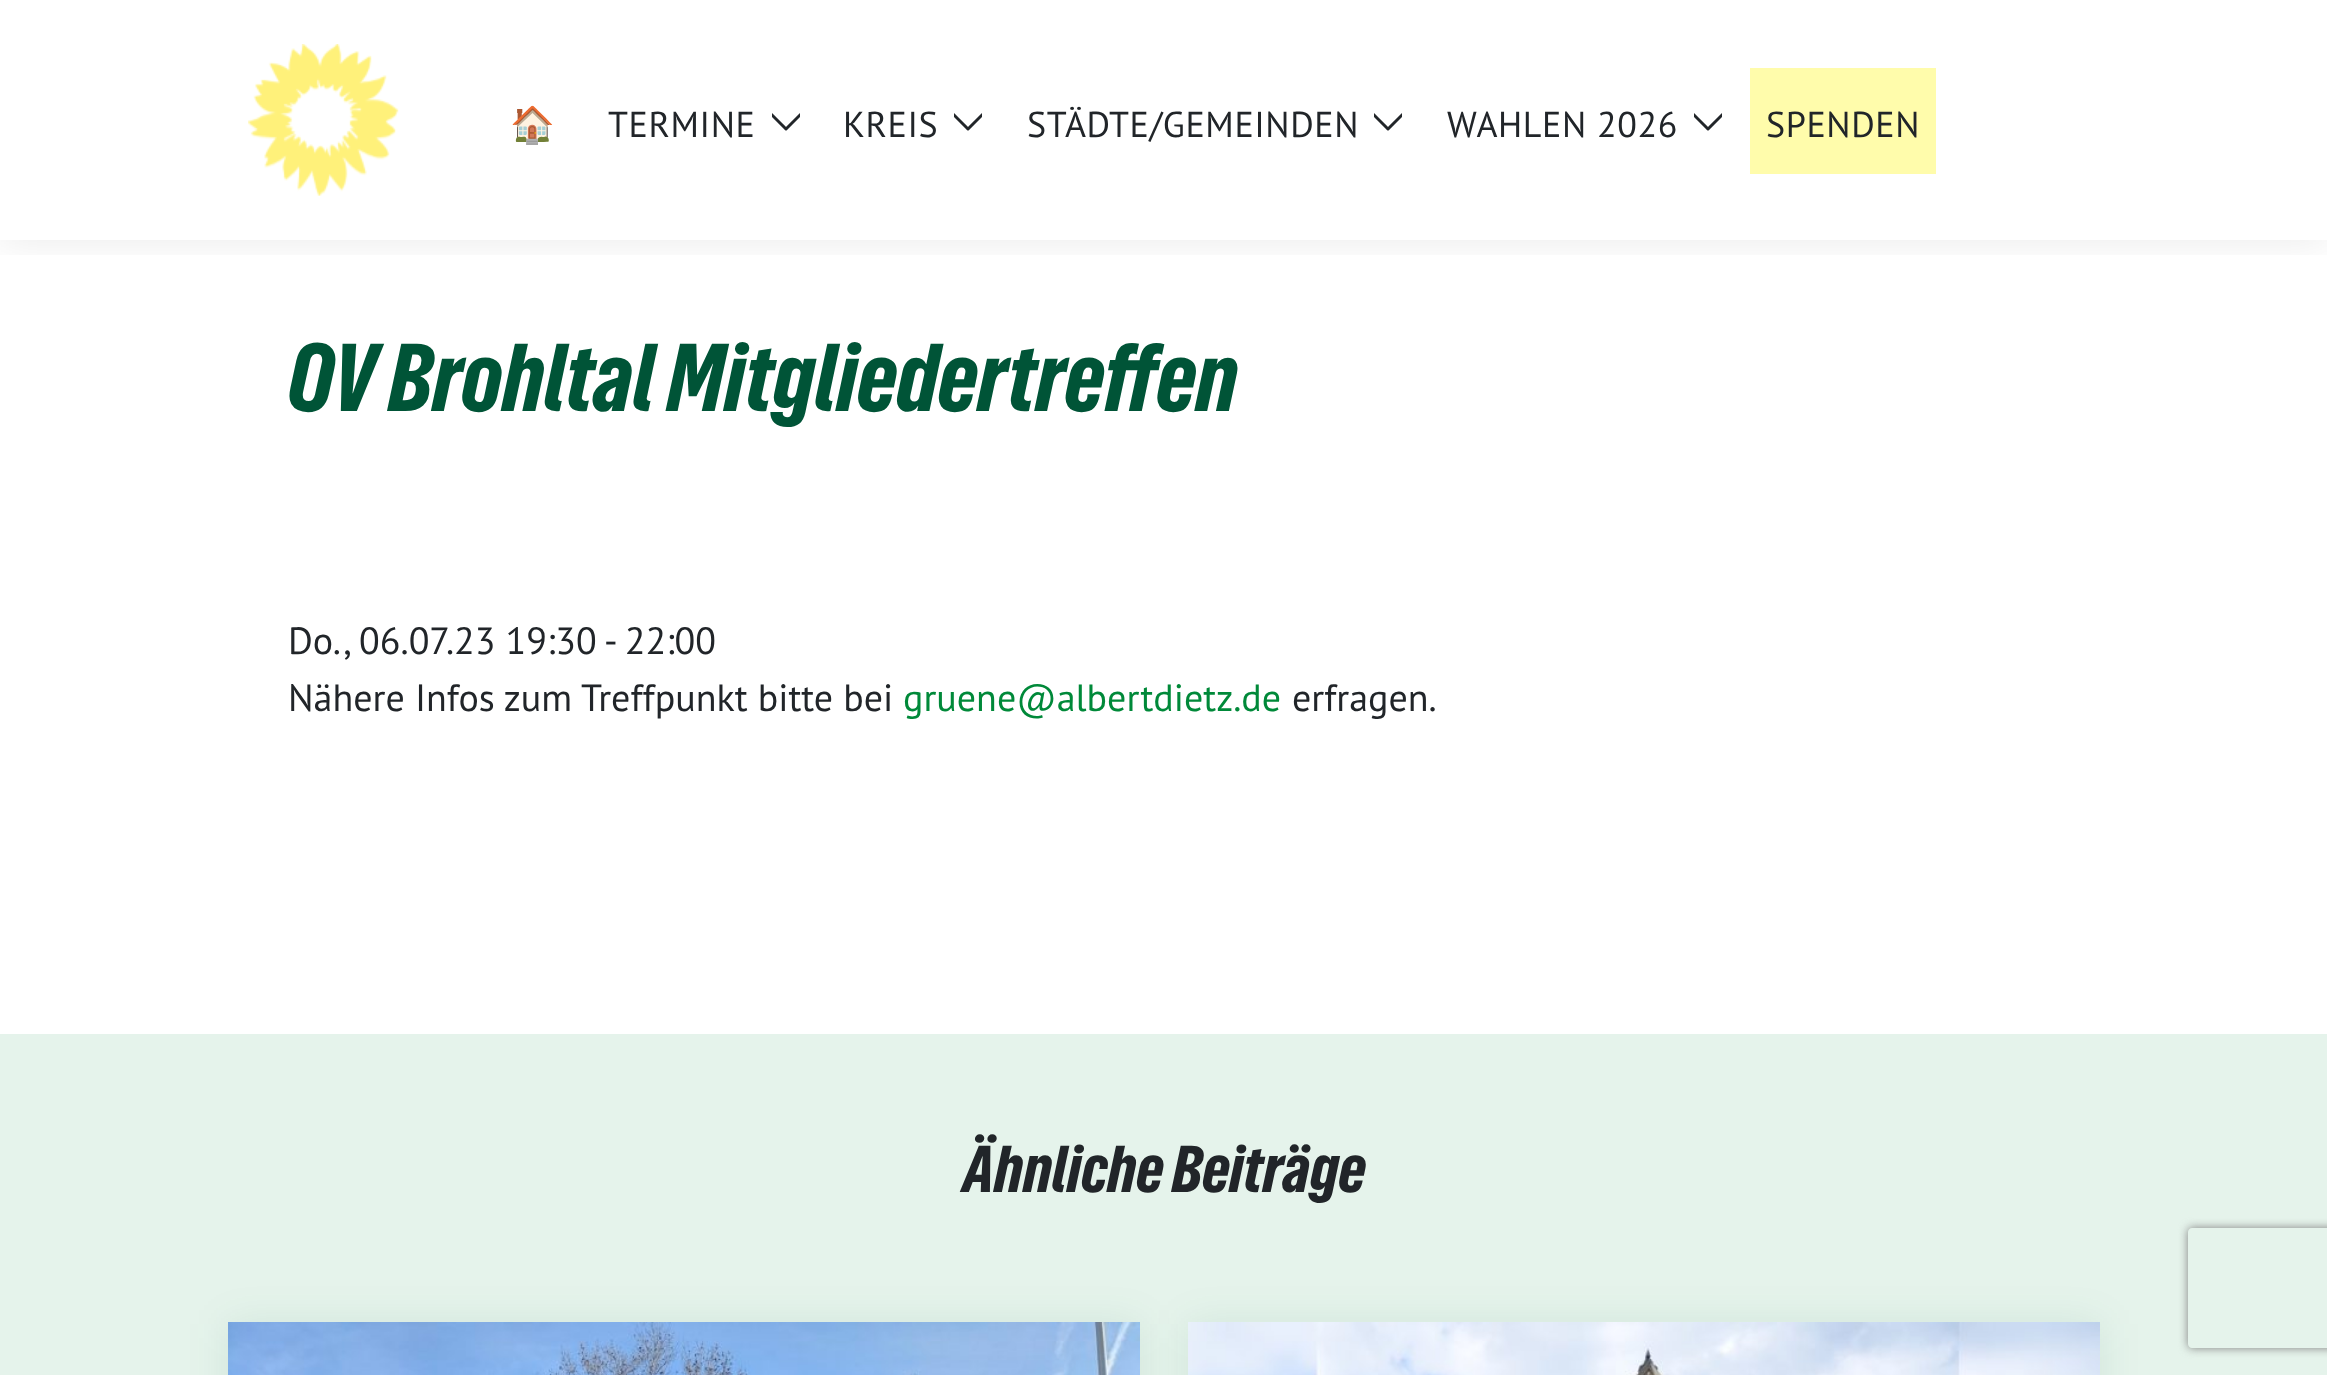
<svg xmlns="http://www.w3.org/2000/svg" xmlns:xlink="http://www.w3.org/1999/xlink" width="2327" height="1375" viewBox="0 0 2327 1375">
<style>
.cls-1{font:36px Noto Color Emoji;letter-spacing:0.6px;fill:#212529}
.cls-2{font:36px PT Sans;letter-spacing:0.6px;fill:#212529}
.cls-3{font:90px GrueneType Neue;fill:#005437}
.cls-4{font:38px PT Sans;fill:#212529}
.cls-5{font:38px PT Sans;fill:#008939}
.cls-6{font:62px GrueneType Neue;fill:#212529}
</style>
<defs>
<clipPath id="clip1"><rect x="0" y="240" width="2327" height="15"/></clipPath>
<clipPath id="clip2"><rect x="772" y="96" width="28" height="48"/></clipPath>
<clipPath id="clip3"><rect x="954" y="96" width="28" height="48"/></clipPath>
<clipPath id="clip4"><rect x="1374" y="96" width="28" height="48"/></clipPath>
<clipPath id="clip5"><rect x="1694" y="96" width="28" height="48"/></clipPath>
<clipPath id="clip6"><path d="M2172 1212H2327V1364H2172ZM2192 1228H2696C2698 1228 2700 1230 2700 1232V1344C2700 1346 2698 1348 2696 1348H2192C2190 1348 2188 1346 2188 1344V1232C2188 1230 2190 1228 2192 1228Z" clip-rule="evenodd"/></clipPath>
</defs>
<rect width="100%" height="100%" fill="#ffffff"/>
<g clip-path="url(#clip1)">
<rect fill="#000000" fill-opacity="0.08" filter="blur(20px)" x="0" y="2" width="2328" height="240"/>
</g>
<image xlink:href="image0.png" x="248" y="44" width="151" height="152"/>
<g clip-path="url(#clip2)">
<path fill="none" stroke="#212529" stroke-width="3" stroke-linecap="round" stroke-linejoin="round" d="M768 111L786 129L804 111"/>
</g>
<g clip-path="url(#clip3)">
<path fill="none" stroke="#212529" stroke-width="3" stroke-linecap="round" stroke-linejoin="round" d="M950 111L968 129L986 111"/>
</g>
<g clip-path="url(#clip4)">
<path fill="none" stroke="#212529" stroke-width="3" stroke-linecap="round" stroke-linejoin="round" d="M1370 111L1388 129L1406 111"/>
</g>
<g clip-path="url(#clip5)">
<path fill="none" stroke="#212529" stroke-width="3" stroke-linecap="round" stroke-linejoin="round" d="M1690 111L1708 129L1726 111"/>
</g>
<rect fill="#fffcab" x="1750" y="68" width="186" height="106"/>
<rect fill="#e5f3eb" x="0" y="1034" width="2327" height="341"/>
<rect fill="#005437" fill-opacity="0.09" filter="blur(20px)" x="228" y="1324" width="912" height="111"/>
<image xlink:href="image1.png" x="228" y="1322" width="912" height="53"/>
<rect fill="#005437" fill-opacity="0.09" filter="blur(20px)" x="1188" y="1324" width="912" height="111"/>
<image xlink:href="image2.png" x="1188" y="1322" width="912" height="53"/>
<g clip-path="url(#clip6)">
<rect fill="#808080" filter="blur(5px)" x="2188" y="1228" width="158" height="120" rx="4"/>
</g>
<text class="cls-1" x="510" y="137">🏠</text>
<text class="cls-2" x="608" y="137">TERMINE</text>
<text class="cls-2" x="843" y="137">KREIS</text>
<text class="cls-2" x="1027" y="137">STÄDTE/GEMEINDEN</text>
<text class="cls-2" x="1447" y="137">WAHLEN 2026</text>
<text class="cls-2" x="1766" y="137">SPENDEN</text>
<text class="cls-3" x="288" y="411">OV Brohltal Mitgliedertreffen</text>
<text class="cls-4" x="288" y="654">Do., 06.07.23 19:30</text>
<text class="cls-4" x="604" y="654">- 22:00</text>
<text class="cls-4" x="288" y="711">Nähere Infos zum Treffpunkt bitte bei</text>
<text class="cls-5" x="903" y="711">gruene@albertdietz.de</text>
<text class="cls-4" x="1292" y="711">erfragen.</text>
<text class="cls-6" x="963" y="1192">Ähnliche Beiträge</text>
</svg>
